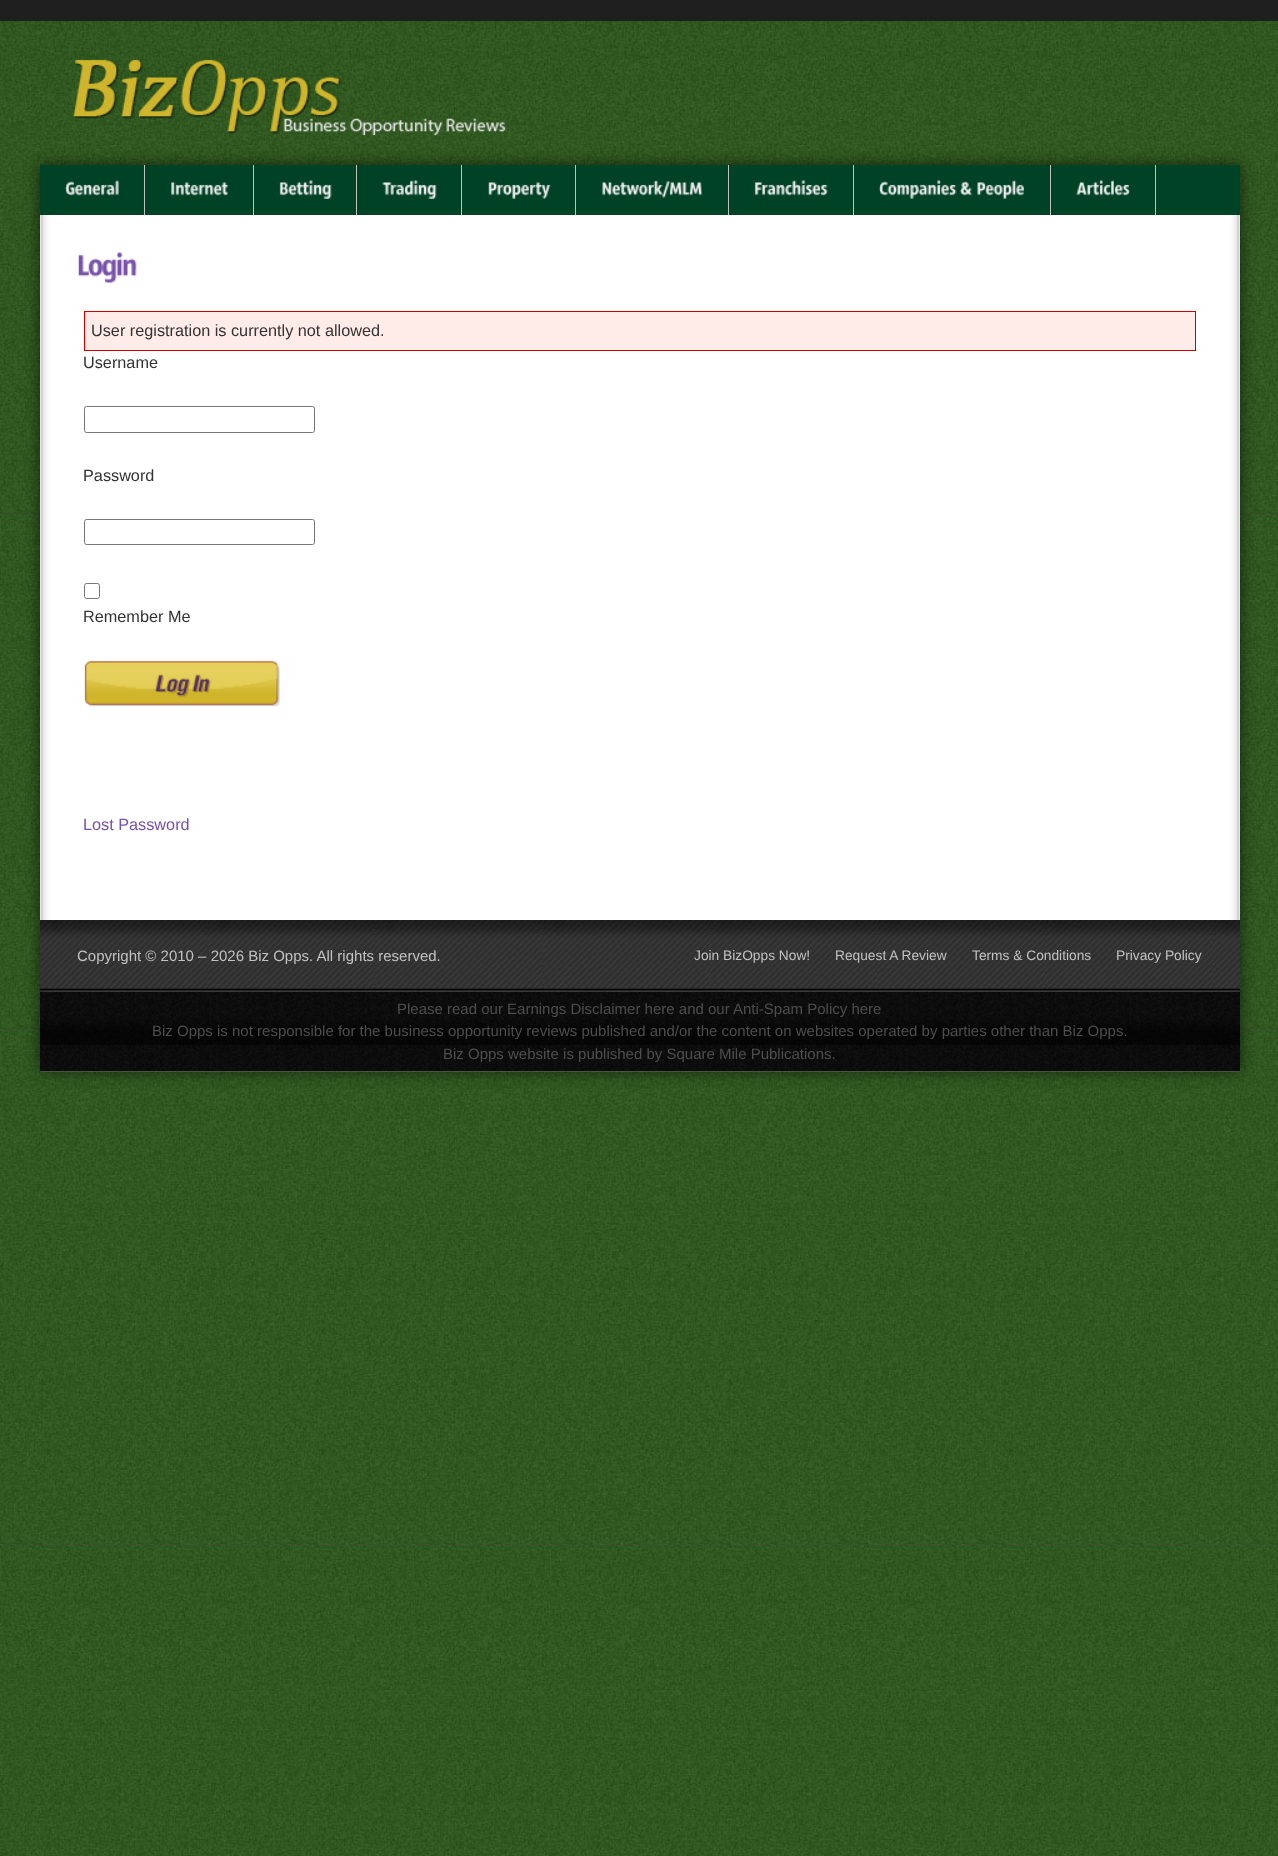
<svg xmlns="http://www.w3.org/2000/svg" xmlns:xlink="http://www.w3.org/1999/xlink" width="1278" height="1856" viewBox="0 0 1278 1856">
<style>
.cls-1{font:16.25px Liberation Sans;fill:#333333}
.cls-2{font:16.25px Liberation Sans;fill:#7851a9}
.cls-3{font:15px Liberation Sans;fill:#c2c2c2}
.cls-4{font:13.75px Liberation Sans;fill:#c2c2c2}
.cls-5{font:15px Liberation Sans;fill:#4e4e4e}
</style>
<rect width="100%" height="100%" fill="#ffffff"/>
<image xlink:href="image0.png" x="0" y="21" width="1278" height="1835"/>
<rect fill="#1f1f1f" x="0" y="0" width="1278" height="21"/>
<image xlink:href="image1.png" x="73" y="59" width="433" height="77"/>
<rect fill="#000000" fill-opacity="0.6" filter="blur(7.5px)" x="40" y="165" width="1200" height="906"/>
<image xlink:href="image2.png" x="40" y="215" width="1200" height="857"/>
<rect fill="#004225" x="40" y="165" width="1200" height="50"/>
<rect fill="#c1c1c1" x="144" y="165" width="1" height="50"/>
<image xlink:href="image3.png" x="65" y="180" width="54" height="16"/>
<rect fill="#c1c1c1" x="253" y="165" width="1" height="50"/>
<image xlink:href="image4.png" x="171" y="182" width="57" height="14"/>
<rect fill="#c1c1c1" x="356" y="165" width="1" height="50"/>
<image xlink:href="image5.png" x="279" y="180" width="53" height="19"/>
<rect fill="#c1c1c1" x="461" y="165" width="1" height="50"/>
<image xlink:href="image6.png" x="382" y="180" width="55" height="19"/>
<rect fill="#c1c1c1" x="575" y="165" width="1" height="50"/>
<image xlink:href="image7.png" x="488" y="182" width="63" height="17"/>
<rect fill="#c1c1c1" x="728" y="165" width="1" height="50"/>
<image xlink:href="image8.png" x="602" y="180" width="101" height="18"/>
<rect fill="#c1c1c1" x="853" y="165" width="1" height="50"/>
<image xlink:href="image9.png" x="754" y="180" width="74" height="16"/>
<rect fill="#c1c1c1" x="1050" y="165" width="1" height="50"/>
<image xlink:href="image10.png" x="878" y="180" width="79" height="19"/>
<image xlink:href="image11.png" x="960" y="181" width="13" height="15"/>
<image xlink:href="image12.png" x="977" y="180" width="48" height="19"/>
<rect fill="#c1c1c1" x="1155" y="165" width="1" height="50"/>
<image xlink:href="image13.png" x="1076" y="180" width="54" height="16"/>
<image xlink:href="image14.png" x="78" y="252" width="59" height="31"/>
<rect fill="#ffebe8" stroke="#cc0000" x="84.5" y="311.5" width="1111" height="39"/>
<rect fill="none" stroke="#767676" x="84.5" y="406.5" width="230" height="26" rx="2"/>
<rect fill="none" stroke="#767676" x="84.5" y="519.5" width="230" height="25" rx="2"/>
<rect fill="none" stroke="#767676" x="84.5" y="583.5" width="15" height="15" rx="2"/>
<image xlink:href="image15.png" x="84" y="660" width="196" height="47"/>
<image xlink:href="image16.png" x="40" y="920" width="1200" height="72"/>
<image xlink:href="image17.png" x="40" y="991" width="1200" height="81"/>
<text class="cls-1" x="91" y="336">User registration is currently not allowed.</text>
<text class="cls-1" x="83" y="368">Username</text>
<text class="cls-1" x="83" y="481">Password</text>
<text class="cls-1" x="83" y="622">Remember Me</text>
<text class="cls-2" x="83" y="830">Lost Password</text>
<text class="cls-3" x="77" y="961">Copyright © 2010 – 2026 Biz Opps. All rights reserved.</text>
<text class="cls-4" x="694" y="960">Join BizOpps Now!</text>
<text class="cls-4" x="835" y="960">Request A Review</text>
<text class="cls-4" x="972" y="960">Terms &amp; Conditions</text>
<text class="cls-4" x="1116" y="960">Privacy Policy</text>
<text class="cls-5" x="397" y="1014">Please read our Earnings Disclaimer here and our Anti-Spam Policy here</text>
<text class="cls-5" x="152" y="1036">Biz Opps is not responsible for the business opportunity reviews published and/or the content on websites operated by parties other than Biz Opps.</text>
<text class="cls-5" x="443" y="1059">Biz Opps website is published by Square Mile Publications.</text>
</svg>
